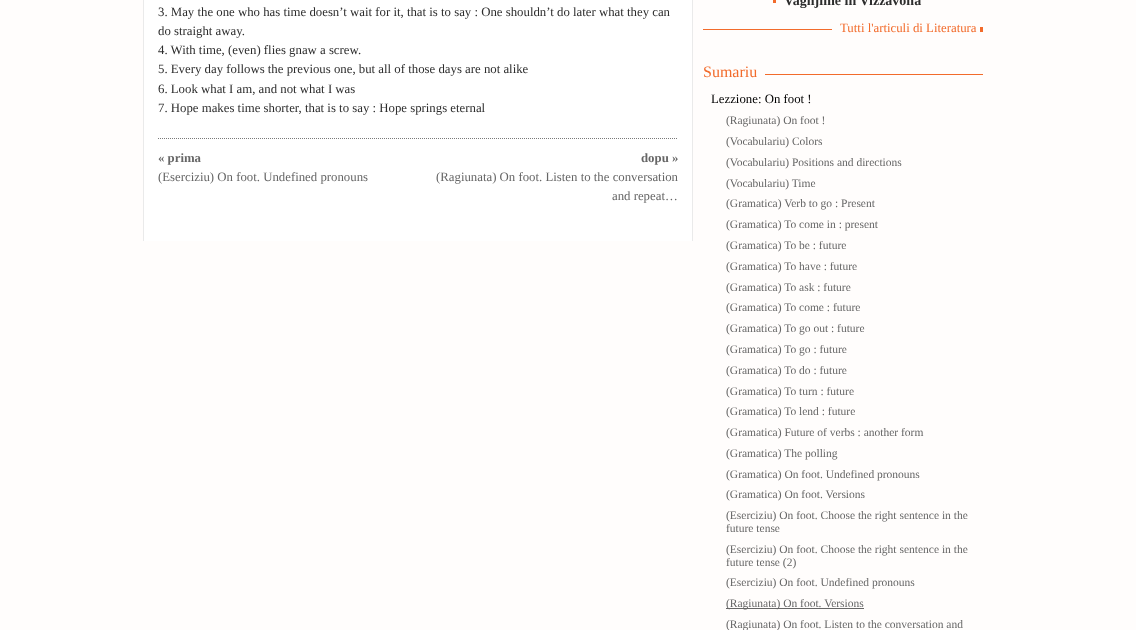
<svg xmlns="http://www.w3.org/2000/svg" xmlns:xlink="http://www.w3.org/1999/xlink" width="1136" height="630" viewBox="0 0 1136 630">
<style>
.cls-1{font:12.8px Liberation Serif;fill:#2d2d2d}
.cls-2{font:bold 12.8px Liberation Serif;fill:#666666}
.cls-3{font:12.8px Liberation Serif;fill:#666666}
.cls-4{font:bold 14px Liberation Serif;fill:#2d2d2d}
.cls-5{font:12.8px Liberation Serif;fill:#f26b2b}
.cls-6{font:16px Liberation Serif;fill:#f26b2b}
.cls-7{font:12.8px Liberation Serif;fill:#000000}
.cls-8{font:11.5px Liberation Serif;fill:#666666}
</style>
<rect width="100%" height="100%" fill="#fffdfc"/>
<rect fill="#ffffff" x="144" y="0" width="548" height="241"/>
<rect fill="#eaeaea" x="692" y="0" width="1" height="241"/>
<rect fill="#eaeaea" x="143" y="0" width="1" height="241"/>
<path fill="none" stroke="#797979" stroke-dasharray="1 1" d="M158 138.5H678"/>
<rect fill="#f26b2b" x="773" y="0" width="3" height="3"/>
<rect fill="#f26b2b" x="703" y="29" width="129" height="1"/>
<rect fill="#f26b2b" x="980" y="27" width="3" height="5"/>
<rect fill="#f26b2b" x="765" y="74" width="218" height="1"/>
<rect fill="#666666" x="726" y="608" width="138" height="1"/>
<text class="cls-1"><tspan x="158" y="16">3. May the one who has time doesn’t wait for it, that is to say : One shouldn’t do later what they can</tspan><tspan x="158" y="35">do straight away.</tspan><tspan x="158" y="54">4. With time, (even) flies gnaw a screw.</tspan><tspan x="158" y="73">5. Every day follows the previous one, but all of those days are not alike</tspan><tspan x="158" y="93">6. Look what I am, and not what I was</tspan><tspan x="158" y="112">7. Hope makes time shorter, that is to say : Hope springs eternal</tspan></text>
<text class="cls-2" x="158" y="162">« prima</text>
<text class="cls-3" x="158" y="181">(Eserciziu) On foot. Undefined pronouns</text>
<text class="cls-2" x="641" y="162">dopu »</text>
<text class="cls-3" x="436" y="181">(Ragiunata) On foot. Listen to the conversation</text>
<text class="cls-3" x="612" y="200">and repeat…</text>
<text class="cls-4" x="784" y="5">Vaghjime in Vizzavona</text>
<text class="cls-5" x="840" y="32">Tutti l'articuli di Literatura</text>
<text class="cls-6" x="703" y="77">Sumariu</text>
<text class="cls-7" x="711" y="103">Lezzione: On foot !</text>
<text class="cls-8"><tspan x="726" y="124">(Ragiunata) On foot !</tspan><tspan x="726" y="145">(Vocabulariu) Colors</tspan><tspan x="726" y="166">(Vocabulariu) Positions and directions</tspan><tspan x="726" y="187">(Vocabulariu) Time</tspan><tspan x="726" y="207">(Gramatica) Verb to go : Present</tspan><tspan x="726" y="228">(Gramatica) To come in : present</tspan><tspan x="726" y="249">(Gramatica) To be : future</tspan><tspan x="726" y="270">(Gramatica) To have : future</tspan><tspan x="726" y="291">(Gramatica) To ask : future</tspan><tspan x="726" y="311">(Gramatica) To come : future</tspan><tspan x="726" y="332">(Gramatica) To go out : future</tspan><tspan x="726" y="353">(Gramatica) To go : future</tspan><tspan x="726" y="374">(Gramatica) To do : future</tspan><tspan x="726" y="395">(Gramatica) To turn : future</tspan><tspan x="726" y="415">(Gramatica) To lend : future</tspan><tspan x="726" y="436">(Gramatica) Future of verbs : another form</tspan><tspan x="726" y="457">(Gramatica) The polling</tspan><tspan x="726" y="478">(Gramatica) On foot. Undefined pronouns</tspan><tspan x="726" y="498">(Gramatica) On foot. Versions</tspan><tspan x="726" y="519">(Eserciziu) On foot. Choose the right sentence in the</tspan><tspan x="726" y="532">future tense</tspan><tspan x="726" y="553">(Eserciziu) On foot. Choose the right sentence in the</tspan><tspan x="726" y="566">future tense (2)</tspan><tspan x="726" y="586">(Eserciziu) On foot. Undefined pronouns</tspan><tspan x="726" y="607">(Ragiunata) On foot. Versions</tspan><tspan x="726" y="628">(Ragiunata) On foot. Listen to the conversation and</tspan></text>
</svg>
